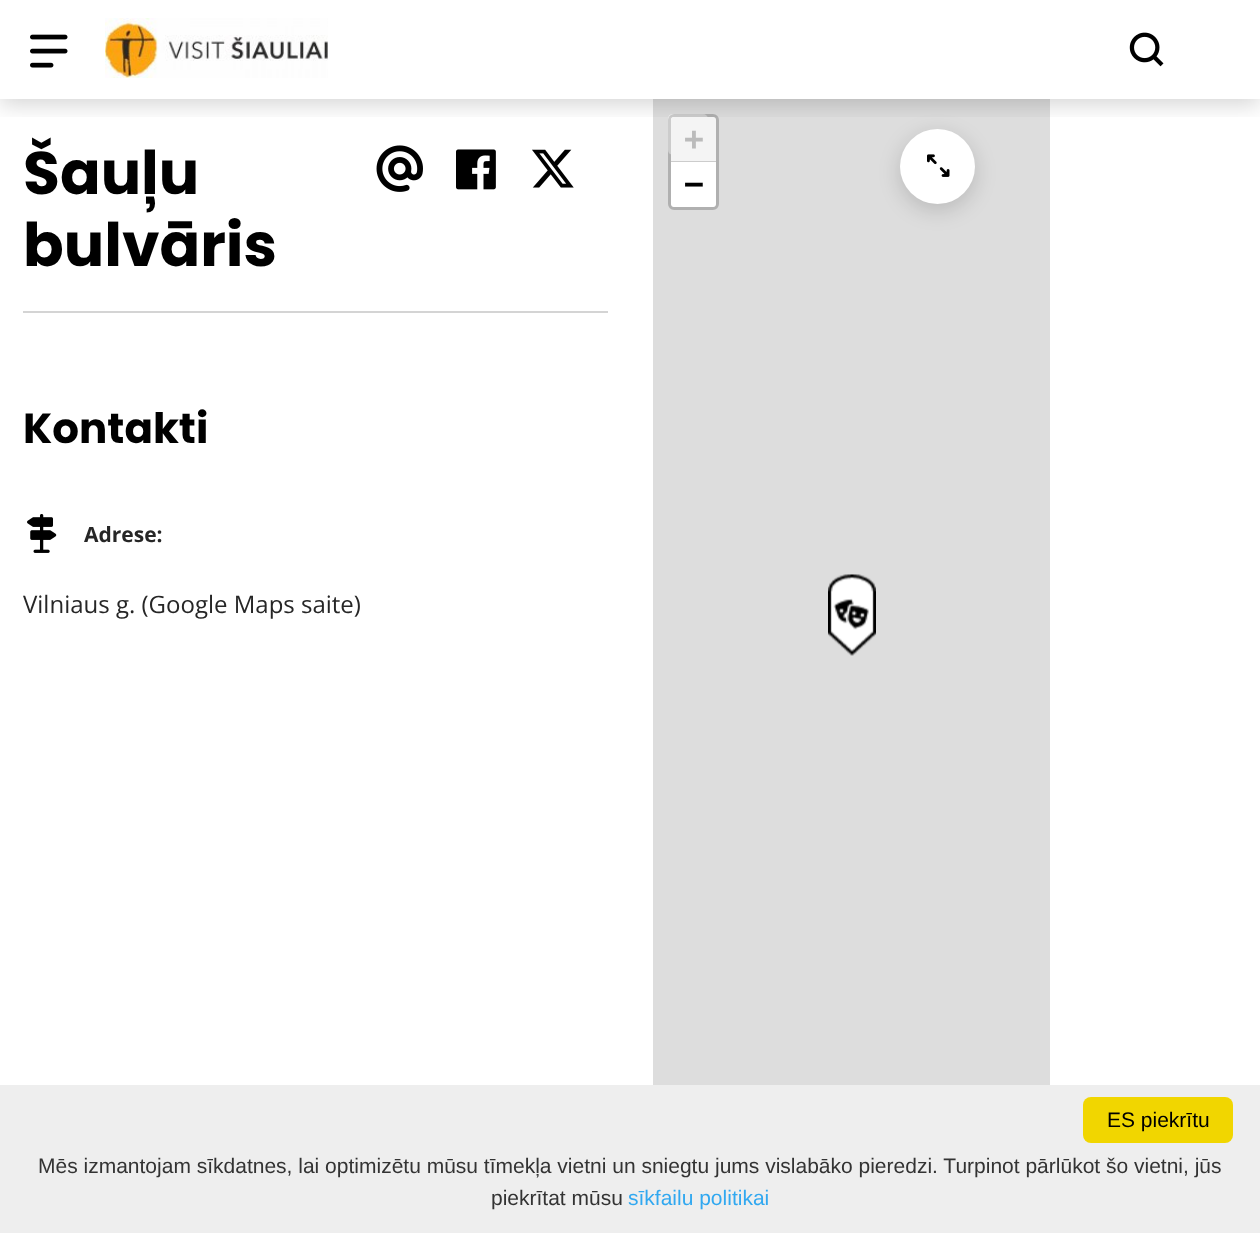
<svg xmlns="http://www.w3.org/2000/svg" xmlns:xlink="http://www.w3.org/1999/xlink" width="1260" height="1233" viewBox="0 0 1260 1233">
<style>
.cls-1{font:bold 60px Poppins;fill:#000000}
.cls-2{font:bold 42px Poppins;fill:#000000}
.cls-3{font:bold 21px Open Sans;fill:#262626}
.cls-4{font:24px Open Sans;fill:#262626}
.cls-5{font:bold 33px DejaVu Sans Mono;fill:#bbbbbb}
.cls-6{font:bold 33px DejaVu Sans Mono;fill:#000000}
.cls-7{font:21px Liberation Sans;fill:#000000}
.cls-8{font:21px Liberation Sans;fill:#333333}
.cls-9{font:21px Liberation Sans;fill:#31a8f0}
</style>
<defs>
<clipPath id="clip1"><rect x="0" y="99" width="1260" height="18"/></clipPath>
</defs>
<rect width="100%" height="100%" fill="#ffffff"/>
<rect fill="#dddddd" x="653" y="99" width="397" height="986"/>
<rect fill="#ffffff" x="668" y="114" width="40" height="41" rx="5"/>
<rect fill="none" stroke="#000000" stroke-opacity="0.2" stroke-width="3" x="669.5" y="115.5" width="48" height="93" rx="4.5"/>
<path fill="#f4f4f4" d="M674 117H713C714.5 117 716 118.5 716 120V162H671V120C671 118.5 672.5 117 674 117Z"/>
<rect fill="#000000" fill-opacity="0.16" filter="blur(10.5px)" x="900" y="135" width="75" height="75" rx="37.5"/>
<circle fill="#ffffff" cx="937.5" cy="166.5" r="37.5"/>
<g clip-path="url(#clip1)">
<rect fill="#000000" fill-opacity="0.16" filter="blur(10.5px)" x="0" y="6" width="1260" height="99"/>
</g>
<image xlink:href="image0.png" x="30" y="34" width="38" height="34"/>
<image xlink:href="image1.png" x="105" y="18" width="223" height="60"/>
<image xlink:href="image2.png" x="1129" y="32" width="35" height="35"/>
<image xlink:href="image3.png" x="376" y="145" width="47" height="47"/>
<image xlink:href="image4.png" x="456" y="149" width="40" height="41"/>
<image xlink:href="image5.png" x="532" y="149" width="42" height="39"/>
<rect fill="#d4d4d4" x="23" y="311" width="585" height="2"/>
<image xlink:href="image6.png" x="27" y="514" width="30" height="39"/>
<rect fill="#cccccc" x="671" y="161" width="45" height="1"/>
<path fill="#ffffff" d="M671 162H716V204C716 205.5 714.5 207 713 207H674C672.5 207 671 205.5 671 204Z"/>
<image xlink:href="image7.png" x="828" y="574" width="48" height="82"/>
<image xlink:href="image8.png" x="927" y="154" width="23" height="23"/>
<rect fill="#eeeeee" x="0" y="1085" width="1260" height="148"/>
<rect fill="#f1d600" x="1083" y="1097" width="150" height="46" rx="8"/>
<text class="cls-1"><tspan x="23" y="194">Šauļu</tspan><tspan x="23" y="266">bulvāris</tspan></text>
<text class="cls-2" x="23" y="443">Kontakti</text>
<text class="cls-3" x="84" y="542">Adrese:</text>
<text class="cls-4" x="23" y="613">Vilniaus g. (Google Maps saite)</text>
<text class="cls-5" x="684" y="150">+</text>
<text class="cls-6" x="684" y="195">−</text>
<text class="cls-7" x="1107" y="1127">ES piekrītu</text>
<text class="cls-8" x="38" y="1173">Mēs izmantojam sīkdatnes, lai optimizētu mūsu tīmekļa vietni un sniegtu jums vislabāko pieredzi. Turpinot pārlūkot šo vietni, jūs</text>
<text class="cls-8" x="491" y="1205">piekrītat mūsu</text>
<text class="cls-9" x="628" y="1205">sīkfailu politikai</text>
</svg>
